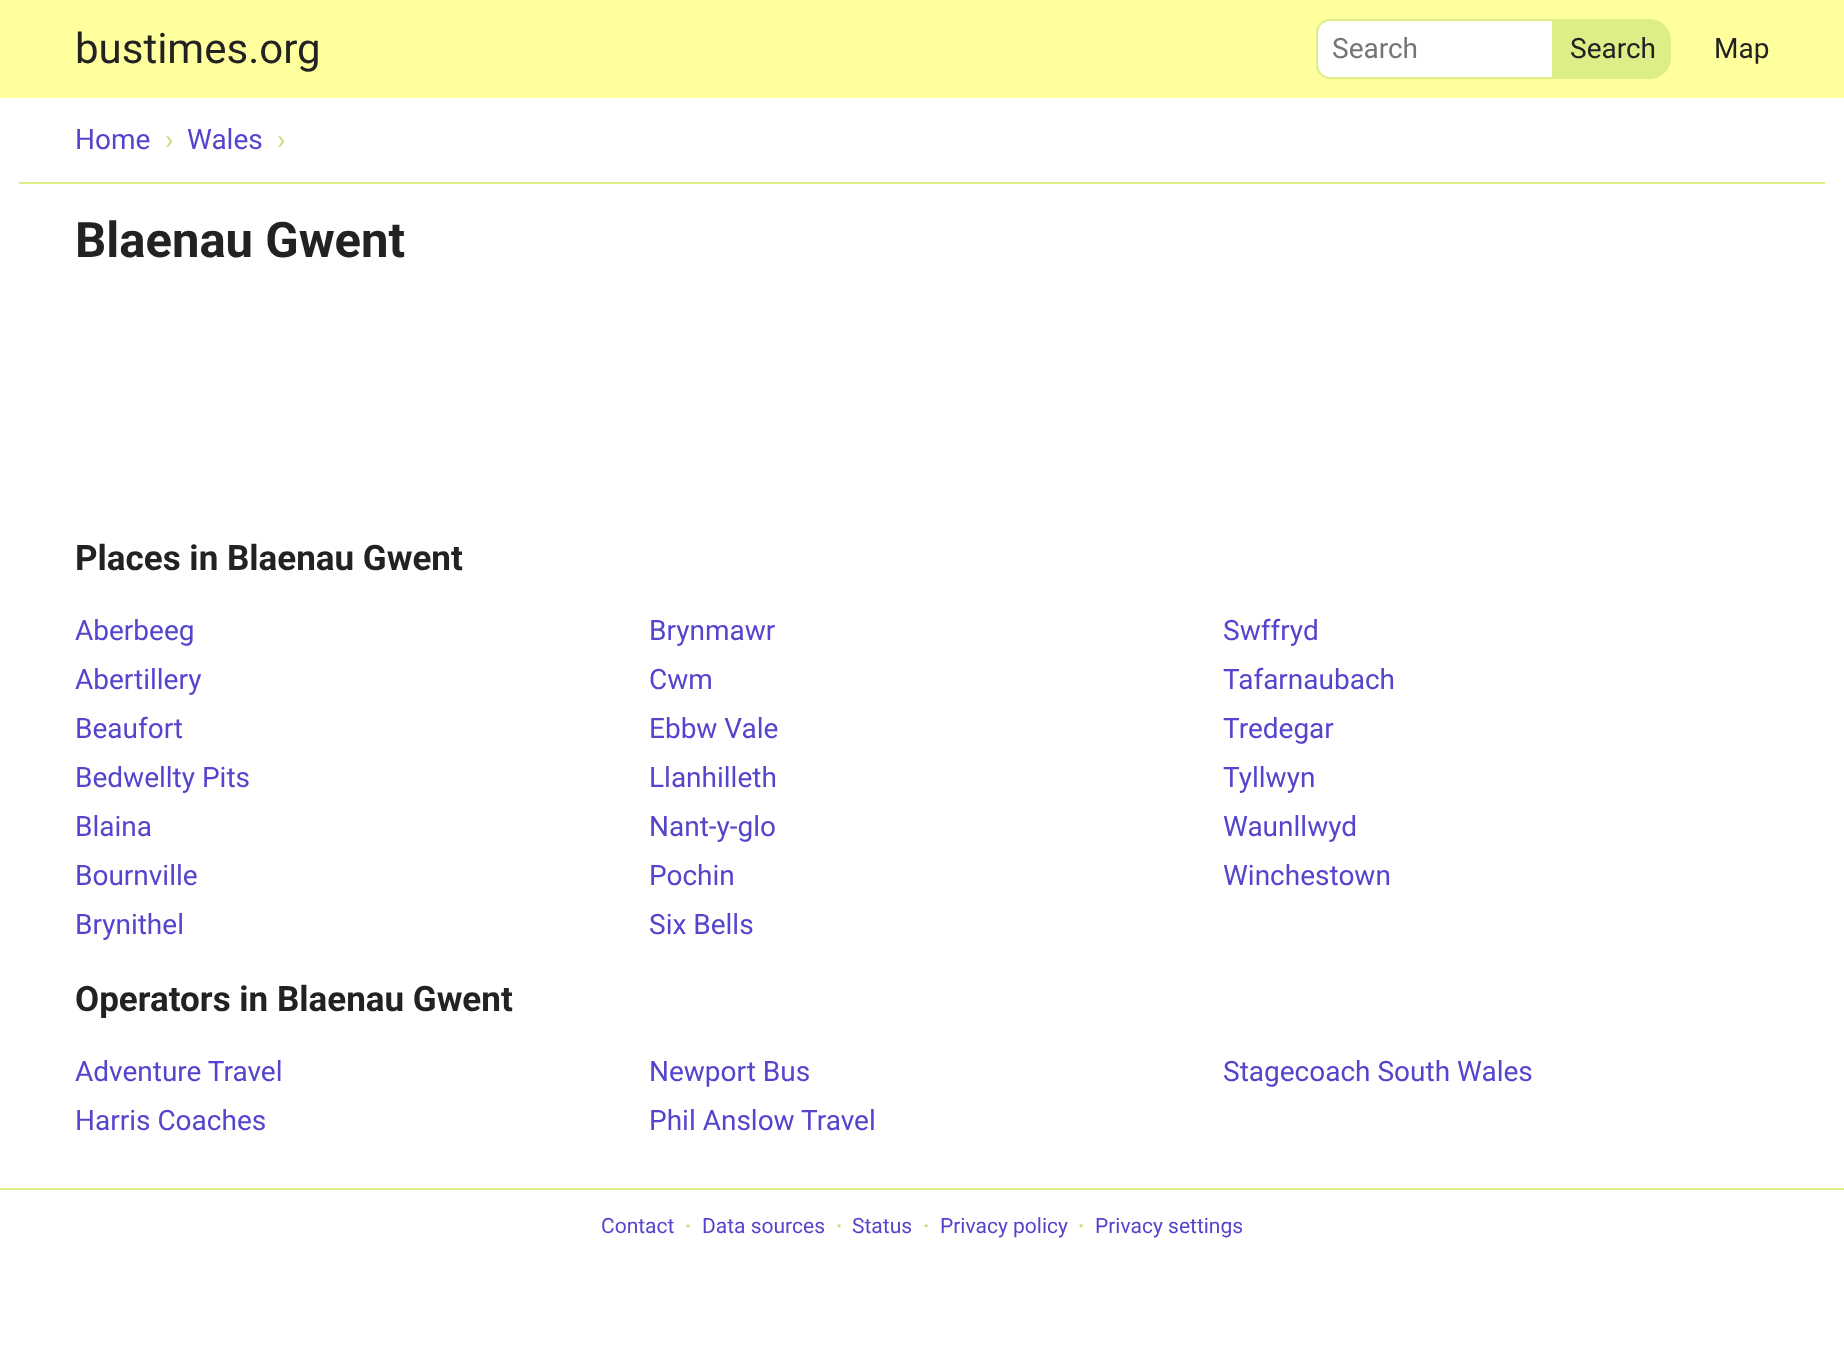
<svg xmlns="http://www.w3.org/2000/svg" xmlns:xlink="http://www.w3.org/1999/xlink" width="1844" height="1351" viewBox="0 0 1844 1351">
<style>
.cls-1{font:42px Roboto;fill:#222222}
.cls-2{font:28px Roboto;fill:#757575}
.cls-3{font:28px Roboto;fill:#222222}
.cls-4{font:28px Roboto;fill:#5544cc}
.cls-5{font:28px Roboto;fill:#ccdd77}
.cls-6{font:bold 49px Roboto;fill:#222222}
.cls-7{font:bold 35px Roboto;fill:#222222}
.cls-8{font:21px Roboto;fill:#5544cc}
.cls-9{font:bold 21px Roboto;fill:#ccdd77}
</style>
<rect width="100%" height="100%" fill="#ffffff"/>
<rect fill="#ffff9e" x="0" y="0" width="1844" height="98"/>
<path fill="#ffffff" stroke="#ddee88" stroke-width="2" d="M1330 20H1553V78H1330C1323 78 1317 72 1317 65V33C1317 26 1323 20 1330 20Z"/>
<path fill="#ddee88" stroke="#ddee88" stroke-width="2" d="M1555 20H1650C1661 20 1670 29 1670 40V58C1670 69 1661 78 1650 78H1555Z"/>
<rect fill="#ddee88" x="19" y="182" width="1806" height="2"/>
<rect fill="#ddee88" x="0" y="1188" width="1844" height="2"/>
<text class="cls-1" x="75" y="63">bustimes.org</text>
<text class="cls-2" x="1332" y="58">Search</text>
<text class="cls-3" x="1570" y="58">Search</text>
<text class="cls-3" x="1714" y="58">Map</text>
<text class="cls-4" x="75" y="149">Home</text>
<text class="cls-5" x="165" y="149">›</text>
<text class="cls-4" x="187" y="149">Wales</text>
<text class="cls-5" x="277" y="149">›</text>
<text class="cls-6" x="75" y="257">Blaenau Gwent</text>
<text class="cls-7" x="75" y="570">Places in Blaenau Gwent</text>
<text class="cls-4" x="75" y="640">Aberbeeg</text>
<text class="cls-4" x="649" y="640">Brynmawr</text>
<text class="cls-4" x="1223" y="640">Swffryd</text>
<text class="cls-4" x="75" y="689">Abertillery</text>
<text class="cls-4" x="649" y="689">Cwm</text>
<text class="cls-4" x="1223" y="689">Tafarnaubach</text>
<text class="cls-4" x="75" y="738">Beaufort</text>
<text class="cls-4" x="649" y="738">Ebbw Vale</text>
<text class="cls-4" x="1223" y="738">Tredegar</text>
<text class="cls-4" x="75" y="787">Bedwellty Pits</text>
<text class="cls-4" x="649" y="787">Llanhilleth</text>
<text class="cls-4" x="1223" y="787">Tyllwyn</text>
<text class="cls-4" x="75" y="836">Blaina</text>
<text class="cls-4" x="649" y="836">Nant-y-glo</text>
<text class="cls-4" x="1223" y="836">Waunllwyd</text>
<text class="cls-4" x="75" y="885">Bournville</text>
<text class="cls-4" x="649" y="885">Pochin</text>
<text class="cls-4" x="1223" y="885">Winchestown</text>
<text class="cls-4" x="75" y="934">Brynithel</text>
<text class="cls-4" x="649" y="934">Six Bells</text>
<text class="cls-7" x="75" y="1011">Operators in Blaenau Gwent</text>
<text class="cls-4" x="75" y="1081">Adventure Travel</text>
<text class="cls-4" x="649" y="1081">Newport Bus</text>
<text class="cls-4" x="1223" y="1081">Stagecoach South Wales</text>
<text class="cls-4" x="75" y="1130">Harris Coaches</text>
<text class="cls-4" x="649" y="1130">Phil Anslow Travel</text>
<text class="cls-8" x="601" y="1233">Contact</text>
<text class="cls-9" x="685" y="1233">·</text>
<text class="cls-8" x="702" y="1233">Data sources</text>
<text class="cls-9" x="836" y="1233">·</text>
<text class="cls-8" x="852" y="1233">Status</text>
<text class="cls-9" x="923" y="1233">·</text>
<text class="cls-8" x="940" y="1233">Privacy policy</text>
<text class="cls-9" x="1078" y="1233">·</text>
<text class="cls-8" x="1095" y="1233">Privacy settings</text>
</svg>
